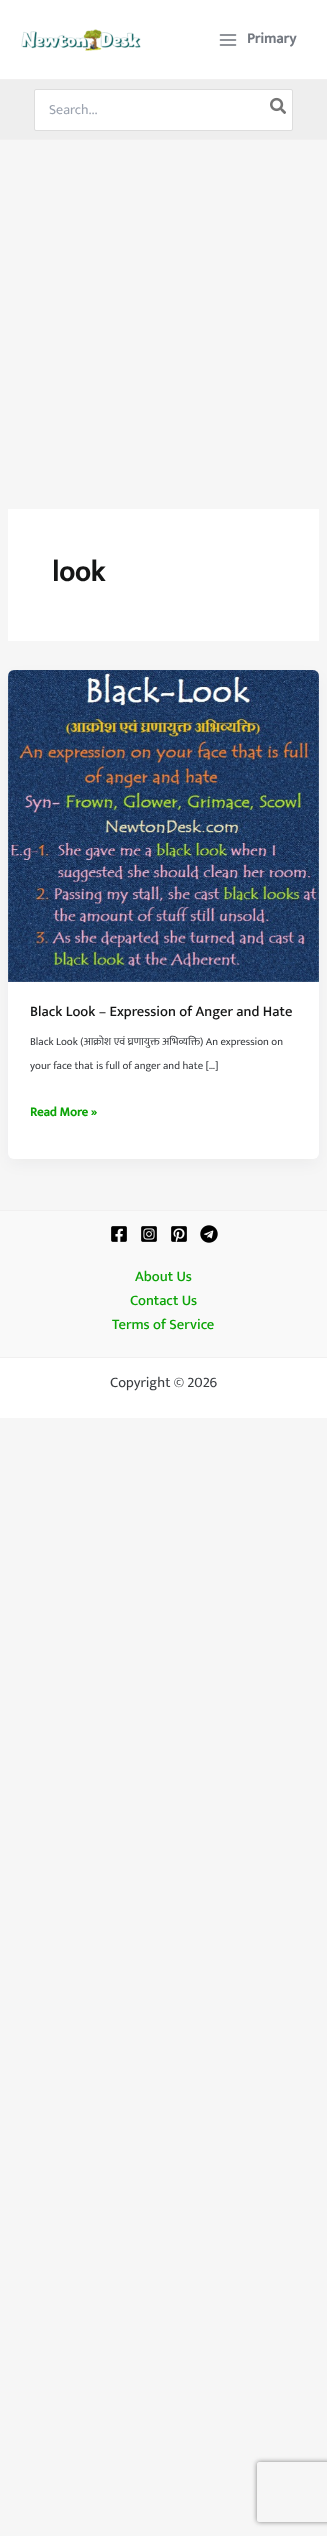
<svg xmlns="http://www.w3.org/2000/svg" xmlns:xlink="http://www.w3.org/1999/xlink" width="327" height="2536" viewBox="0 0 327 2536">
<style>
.cls-1{font:bold 14.6px Mukta;fill:#737880}
.cls-2{font:14px Mukta;fill:#9ca3af}
.cls-3{font:bold 29px Mukta;fill:#151616}
.cls-4{font:500 14.6px Mukta;fill:#151616}
.cls-5{font:10.9px Mukta;fill:#393c40}
.cls-6{font:bold 12.75px Mukta;fill:#0da408}
.cls-7{font:500 14.6px Mukta;fill:#0da408}
.cls-8{font:14.6px Mukta;fill:#393c40}
</style>
<defs>
<clipPath id="clip1"><path d="M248 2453H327V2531H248ZM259 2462H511C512 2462 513 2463 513 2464V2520C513 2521 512 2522 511 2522H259C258 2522 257 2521 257 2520V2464C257 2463 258 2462 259 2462Z" clip-rule="evenodd"/></clipPath>
</defs>
<rect width="100%" height="100%" fill="#f6f6f6"/>
<rect fill="#ffffff" x="0" y="0" width="327" height="79"/>
<rect fill="#f1f0f0" x="0" y="79" width="327" height="1"/>
<image xlink:href="image0.png" x="21" y="29" width="120" height="22"/>
<image xlink:href="image1.png" x="219" y="34" width="18" height="12"/>
<rect fill="#eeeeee" x="0" y="80" width="327" height="59"/>
<rect fill="#f1f0f0" x="0" y="139" width="327" height="1"/>
<rect fill="#ffffff" stroke="#dddddd" x="34.5" y="89.5" width="258" height="41" rx="1.5"/>
<image xlink:href="image2.png" x="270" y="97" width="16" height="17"/>
<rect fill="#ffffff" x="8" y="509" width="311" height="132"/>
<rect fill="#101828" fill-opacity="0.05" filter="blur(7.5px)" x="10" y="678" width="307" height="485" rx="4"/>
<rect fill="#ffffff" x="8" y="670" width="311" height="489" rx="6"/>
<image xlink:href="image3.png" x="8" y="670" width="311" height="312"/>
<rect fill="#f9f9f9" x="0" y="1211" width="327" height="146"/>
<rect fill="#f1f0f0" x="0" y="1210" width="327" height="1"/>
<image xlink:href="image4.png" x="111" y="1226" width="16" height="16"/>
<image xlink:href="image5.png" x="141" y="1226" width="16" height="16"/>
<image xlink:href="image6.png" x="171" y="1226" width="16" height="16"/>
<image xlink:href="image7.png" x="200" y="1225" width="18" height="18"/>
<rect fill="#ffffff" x="0" y="1358" width="327" height="60"/>
<rect fill="#f1f0f0" x="0" y="1357" width="327" height="1"/>
<g clip-path="url(#clip1)">
<rect fill="#808080" filter="blur(2.5px)" x="257" y="2462" width="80" height="60" rx="2"/>
</g>
<text class="cls-1" x="247" y="43">Primary</text>
<text class="cls-2" x="49" y="114">Search...</text>
<text class="cls-3" x="52" y="581">look</text>
<text class="cls-4" x="30" y="1016">Black Look – Expression of Anger and Hate</text>
<text class="cls-5" x="30" y="1045">Black Look (आक्रोश एवं घ्रणायुक्त अभिव्यक्ति) An expression on</text>
<text class="cls-5" x="30" y="1069">your face that is full of anger and hate […]</text>
<text class="cls-6" x="30" y="1116">Read More »</text>
<text class="cls-7" x="135" y="1281">About Us</text>
<text class="cls-7" x="130" y="1305">Contact Us</text>
<text class="cls-7" x="112" y="1329">Terms of Service</text>
<text class="cls-8" x="110" y="1387">Copyright © 2026</text>
</svg>
